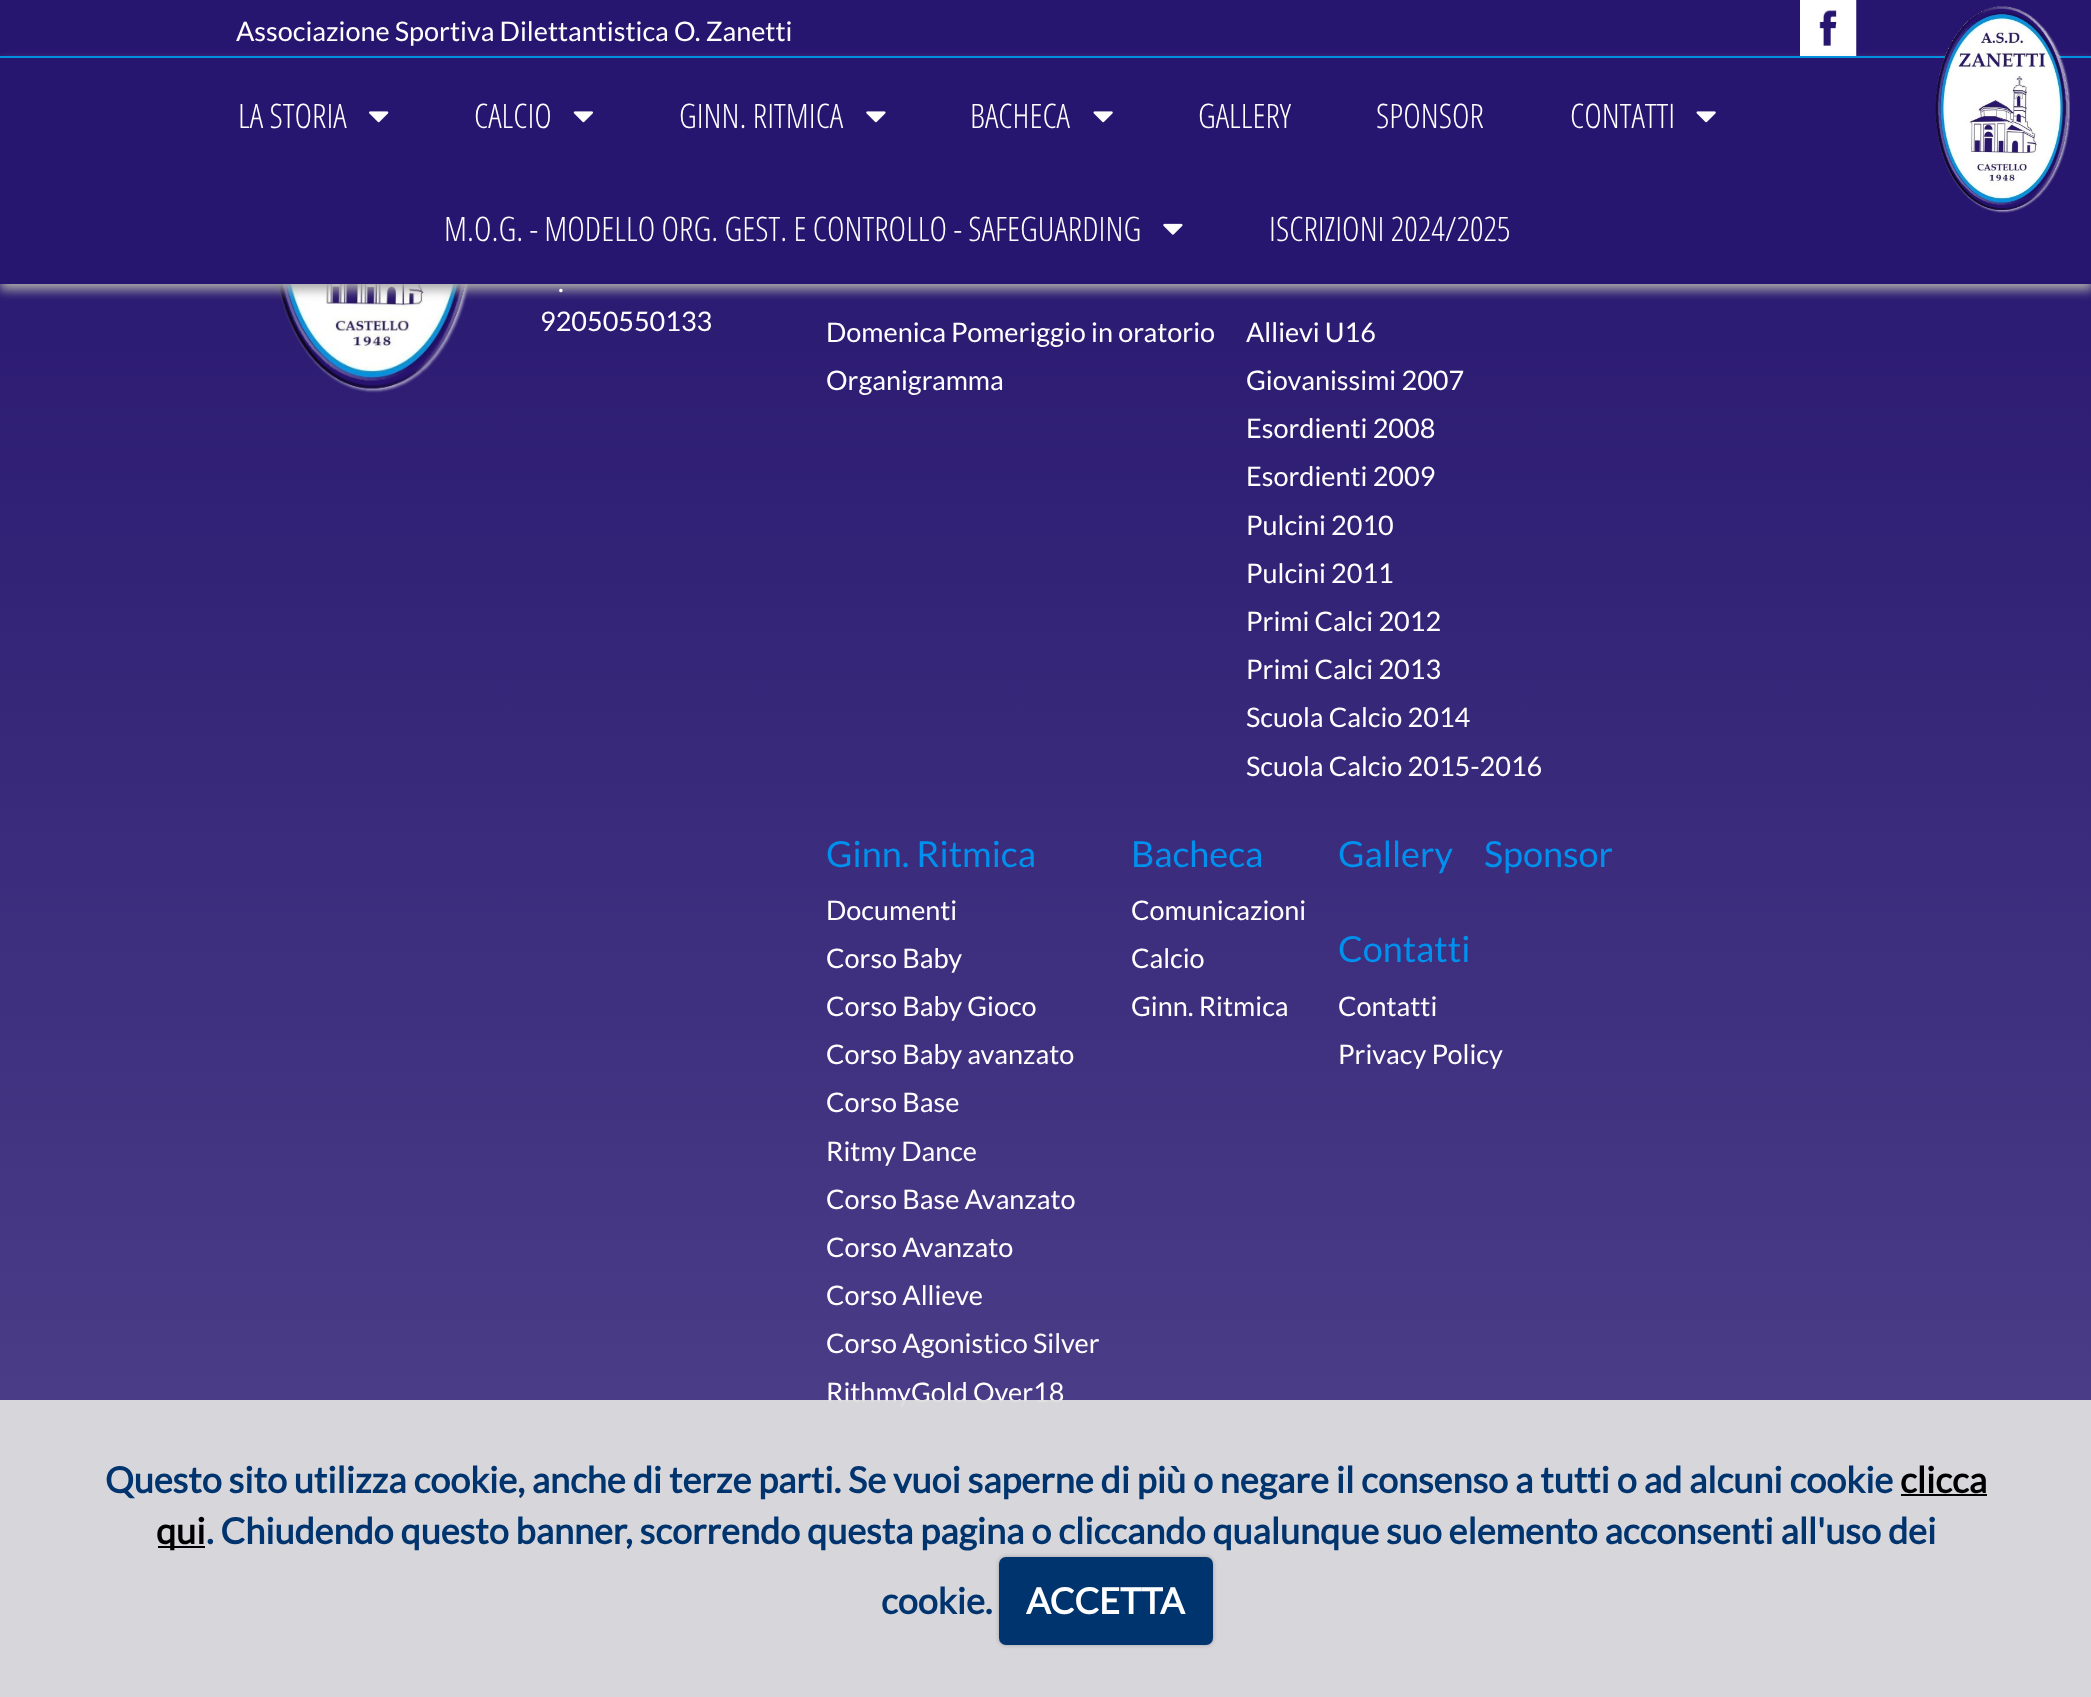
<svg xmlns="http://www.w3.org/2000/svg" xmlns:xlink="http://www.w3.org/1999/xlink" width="2091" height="1697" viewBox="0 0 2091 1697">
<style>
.cls-1{font:27px Lato;fill:#ffffff}
.cls-2{font:300 33.75px Open Sans Condensed;fill:#ffffff}
.cls-3{font:36px Lato;fill:#0090ed}
.cls-4{font:bold 36px Lato;fill:#00346e}
.cls-5{font:bold 36px Lato;fill:#000000}
.cls-6{font:bold 36px Lato;fill:#ffffff}
</style>
<defs>
<linearGradient id="g1" gradientUnits="userSpaceOnUse" x1="1046" y1="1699" x2="1046" y2="126"><stop offset="0" stop-color="#52458c"/><stop offset="1" stop-color="#27166f"/></linearGradient>
</defs>
<rect width="100%" height="100%" fill="#ffffff"/>
<rect fill="#27166f" x="0" y="0" width="2091" height="56"/>
<image xlink:href="image0.png" x="1800" y="0" width="57" height="56"/>
<rect fill="url(#g1)" x="0" y="284" width="2091" height="1413"/>
<image xlink:href="image7.png" x="277" y="284" width="193" height="109"/>
<rect fill="#aaaaaa" filter="blur(5.5px)" x="0" y="63" width="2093" height="227"/>
<rect fill="#27166f" x="0" y="58" width="2091" height="226"/>
<rect fill="#0090e0" x="0" y="56" width="2091" height="2"/>
<image xlink:href="image1.png" x="1935" y="6" width="135" height="207"/>
<image xlink:href="image2.png" x="369" y="111" width="20" height="12"/>
<image xlink:href="image3.png" x="573" y="111" width="20" height="12"/>
<image xlink:href="image4.png" x="866" y="111" width="20" height="12"/>
<image xlink:href="image5.png" x="1093" y="111" width="20" height="12"/>
<image xlink:href="image5.png" x="1696" y="111" width="20" height="12"/>
<image xlink:href="image6.png" x="1163" y="223" width="20" height="12"/>
<text class="cls-1" x="236" y="41">Associazione Sportiva Dilettantistica O. Zanetti</text>
<text class="cls-2" x="238" y="128">LA STORIA</text>
<text class="cls-2" x="474" y="128">CALCIO</text>
<text class="cls-2" x="679" y="128">GINN. RITMICA</text>
<text class="cls-2" x="970" y="128">BACHECA</text>
<text class="cls-2" x="1198" y="128">GALLERY</text>
<text class="cls-2" x="1376" y="128">SPONSOR</text>
<text class="cls-2" x="1570" y="128">CONTATTI</text>
<text class="cls-2" x="444" y="241">M.O.G. - MODELLO ORG. GEST. E CONTROLLO - SAFEGUARDING</text>
<text class="cls-2" x="1269" y="241">ISCRIZIONI 2024/2025</text>
<text class="cls-1" x="558" y="292">.</text>
<text class="cls-1" x="540" y="331">92050550133</text>
<text class="cls-1"><tspan x="826" y="342">Domenica Pomeriggio in oratorio</tspan><tspan x="826" y="390">Organigramma</tspan></text>
<text class="cls-1"><tspan x="1246" y="342">Allievi U16</tspan><tspan x="1246" y="390">Giovanissimi 2007</tspan><tspan x="1246" y="438">Esordienti 2008</tspan><tspan x="1246" y="486">Esordienti 2009</tspan><tspan x="1246" y="535">Pulcini 2010</tspan><tspan x="1246" y="583">Pulcini 2011</tspan><tspan x="1246" y="631">Primi Calci 2012</tspan><tspan x="1246" y="679">Primi Calci 2013</tspan><tspan x="1246" y="727">Scuola Calcio 2014</tspan><tspan x="1246" y="776">Scuola Calcio 2015-2016</tspan></text>
<text class="cls-3" x="826" y="867">Ginn. Ritmica</text>
<text class="cls-1"><tspan x="826" y="920">Documenti</tspan><tspan x="826" y="968">Corso Baby</tspan><tspan x="826" y="1016">Corso Baby Gioco</tspan><tspan x="826" y="1064">Corso Baby avanzato</tspan><tspan x="826" y="1112">Corso Base</tspan><tspan x="826" y="1161">Ritmy Dance</tspan><tspan x="826" y="1209">Corso Base Avanzato</tspan><tspan x="826" y="1257">Corso Avanzato</tspan><tspan x="826" y="1305">Corso Allieve</tspan><tspan x="826" y="1353">Corso Agonistico Silver</tspan><tspan x="826" y="1402">RithmyGold Over18</tspan></text>
<text class="cls-3" x="1131" y="867">Bacheca</text>
<text class="cls-1"><tspan x="1131" y="920">Comunicazioni</tspan><tspan x="1131" y="968">Calcio</tspan><tspan x="1131" y="1016">Ginn. Ritmica</tspan></text>
<text class="cls-3" x="1338" y="867">Gallery</text>
<text class="cls-3" x="1484" y="867">Sponsor</text>
<text class="cls-3" x="1338" y="962">Contatti</text>
<text class="cls-1"><tspan x="1338" y="1016">Contatti</tspan><tspan x="1338" y="1064">Privacy Policy</tspan></text>
<rect fill="#dedede" fill-opacity="0.95" x="0" y="1400" width="2091" height="297"/>
<text class="cls-4" x="105" y="1493">Questo sito utilizza cookie, anche di terze parti. Se vuoi saperne di più o negare il consenso a tutti o ad alcuni cookie</text>
<text class="cls-5" x="1900" y="1493">clicca</text>
<rect fill="#000000" x="1901" y="1494" width="86" height="2"/>
<rect fill="#000000" x="158" y="1546" width="47" height="2"/>
<text class="cls-5" x="156" y="1544">qui</text>
<text class="cls-4" x="206" y="1544">. Chiudendo questo banner, scorrendo questa pagina o cliccando qualunque suo elemento acconsenti all'uso dei</text>
<text class="cls-4" x="881" y="1614">cookie.</text>
<rect fill="#000000" fill-opacity="0.25" filter="blur(2px)" x="999" y="1557" width="214" height="88" rx="7"/>
<rect fill="#00346e" x="999" y="1557" width="214" height="88" rx="7"/>
<text class="cls-6" x="1026" y="1614">ACCETTA</text>
</svg>
